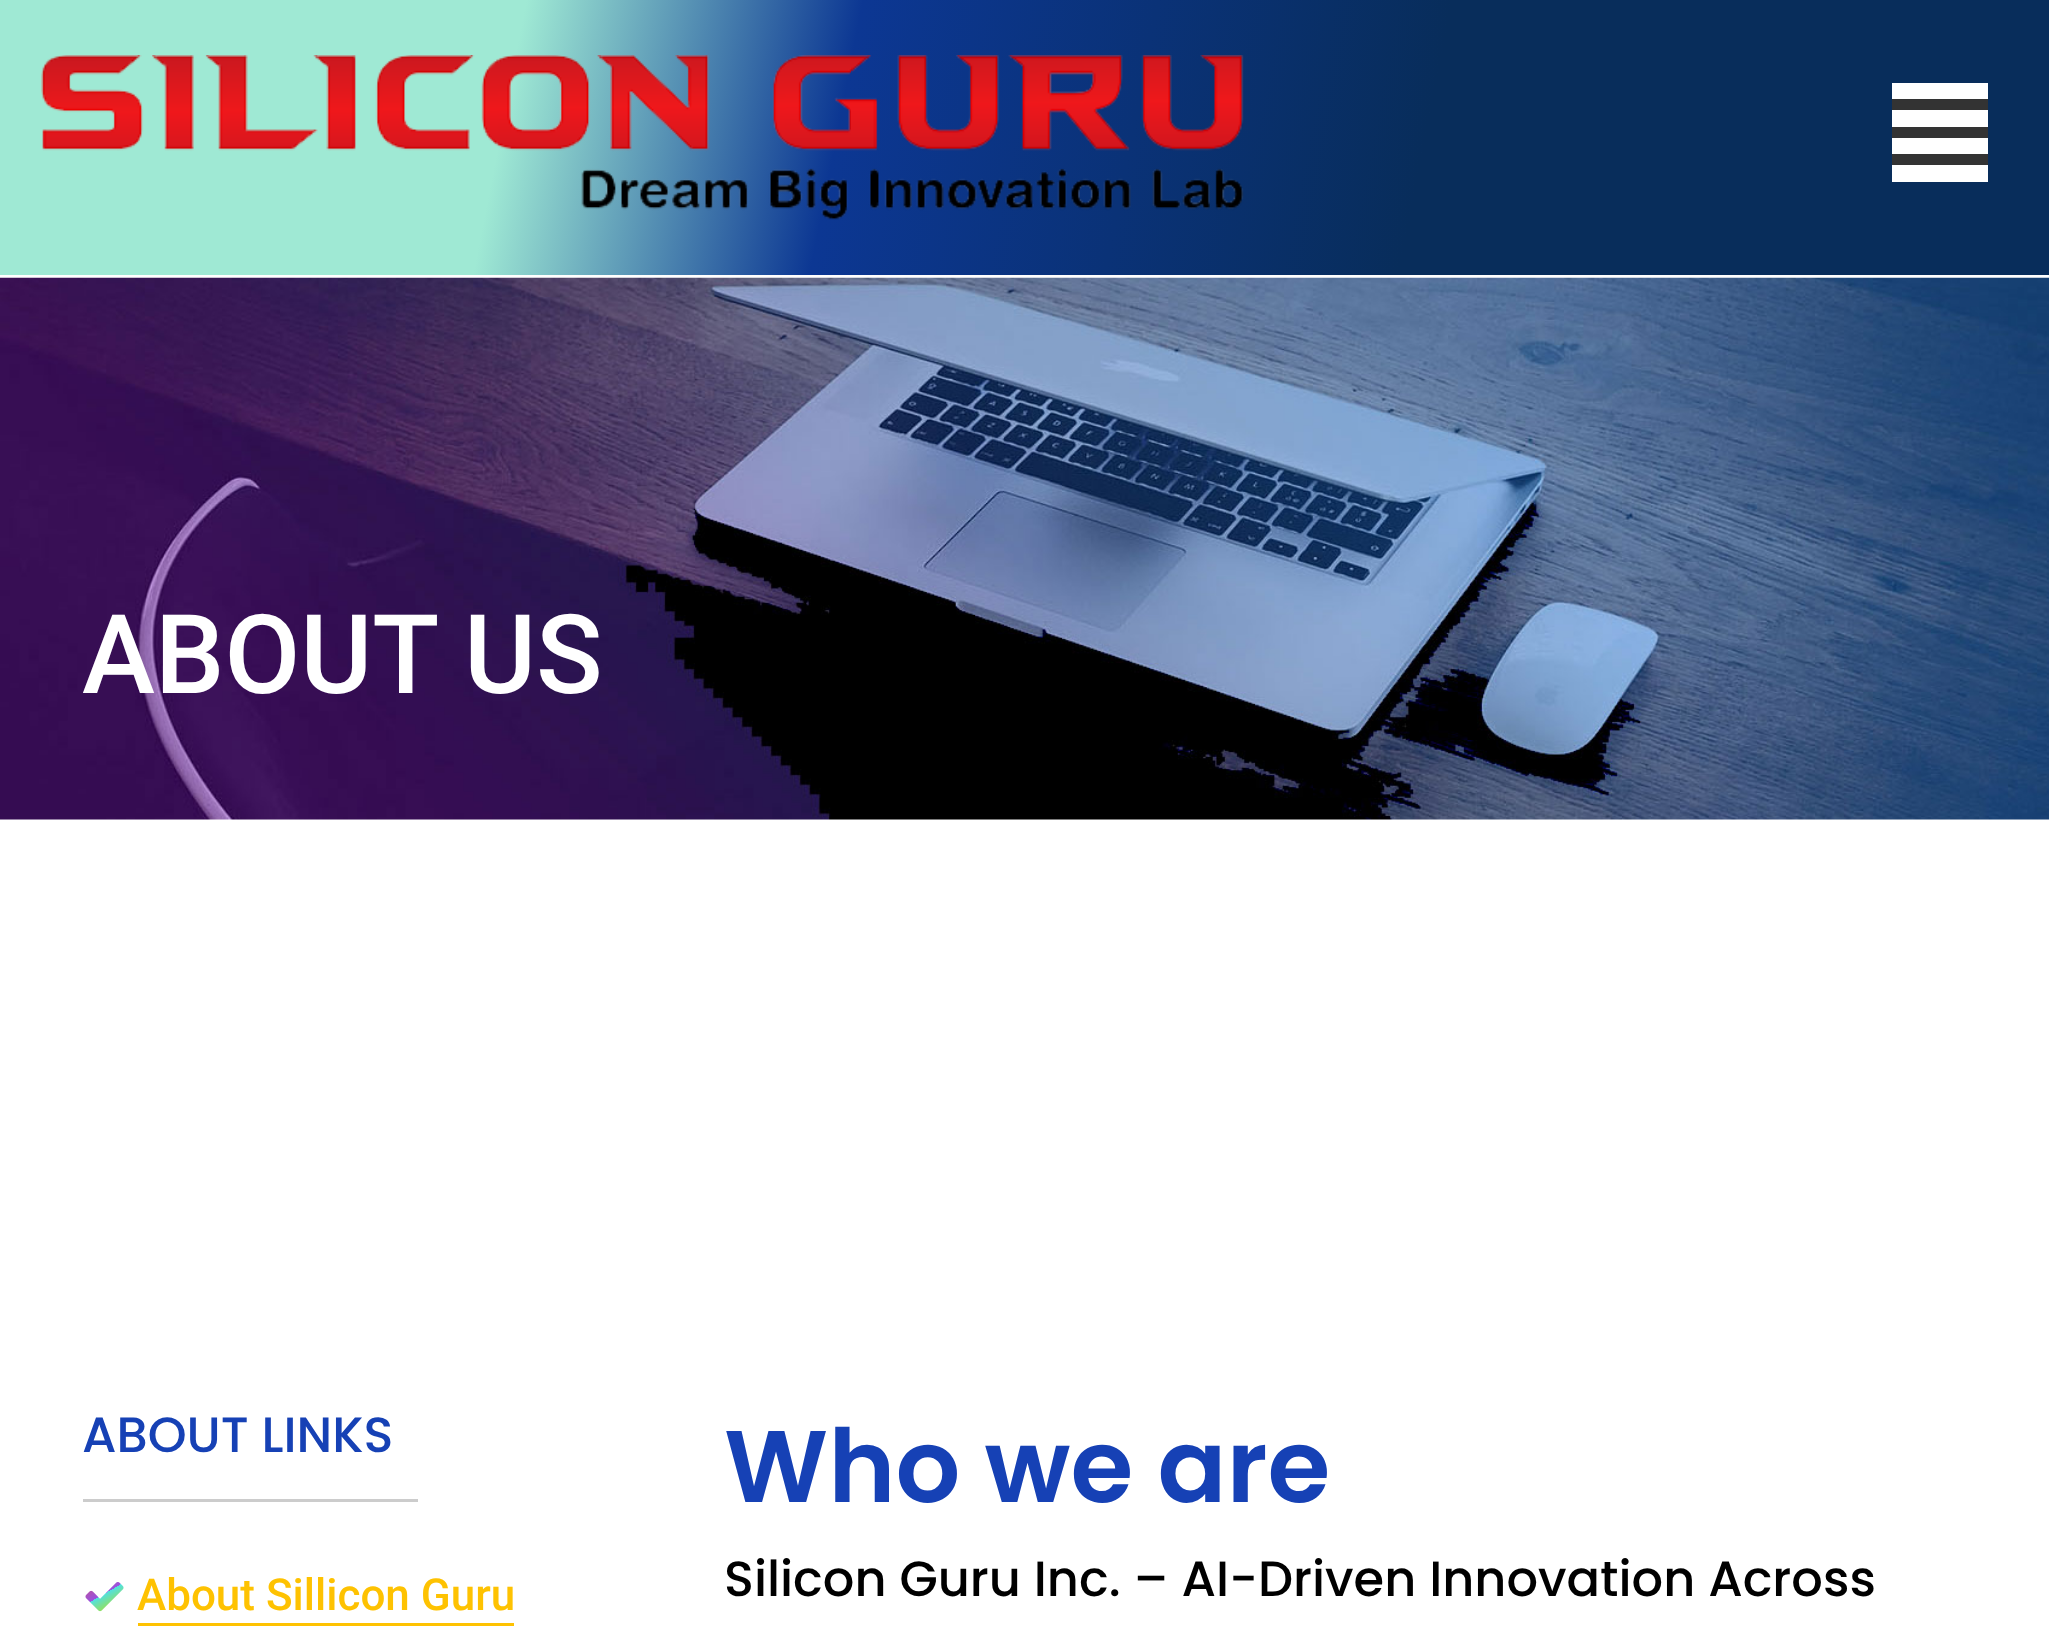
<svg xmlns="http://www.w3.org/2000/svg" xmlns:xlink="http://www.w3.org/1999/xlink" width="2049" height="1635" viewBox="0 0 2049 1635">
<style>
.cls-1{font:500 110px Roboto;fill:#ffffff}
.cls-2{font:500 49.5px Poppins;fill:#1641b5}
.cls-3{font:500 44px Roboto;fill:#fec201}
.cls-4{font:600 101.75px Poppins;fill:#1641b5}
.cls-5{font:500 49.5px Poppins;fill:#000000}
</style>
<defs>
<linearGradient id="g1" gradientUnits="userSpaceOnUse" x1="12" y1="-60" x2="2040" y2="335"><stop offset="0.25" stop-color="#9fe9d4"/><stop offset="0.41" stop-color="#0c3793"/><stop offset="0.69" stop-color="#082d5b"/></linearGradient>
</defs>
<rect width="100%" height="100%" fill="#ffffff"/>
<rect fill="url(#g1)" x="0" y="0" width="2049" height="275"/>
<image xlink:href="image0.png" x="41" y="55" width="1203" height="165"/>
<rect fill="#ffffff" x="1892" y="83" width="96" height="99"/>
<rect fill="#333333" x="1892" y="99" width="96" height="11"/>
<rect fill="#333333" x="1892" y="127" width="96" height="11"/>
<rect fill="#333333" x="1892" y="154" width="96" height="11"/>
<image xlink:href="image1.png" x="0" y="277" width="2049" height="543"/>
<rect fill="#cccccc" x="83" y="1499" width="335" height="3"/>
<image xlink:href="image2.png" x="85" y="1582" width="39" height="30"/>
<rect fill="#fec201" x="138" y="1623" width="376" height="3"/>
<text class="cls-1" x="82" y="693">ABOUT US</text>
<text class="cls-2" x="82" y="1452">ABOUT LINKS</text>
<text class="cls-3" x="137" y="1610">About Sillicon Guru</text>
<text class="cls-4" x="724" y="1502">Who we are</text>
<text class="cls-5" x="724" y="1596">Silicon Guru Inc. – AI-Driven Innovation Across</text>
</svg>
